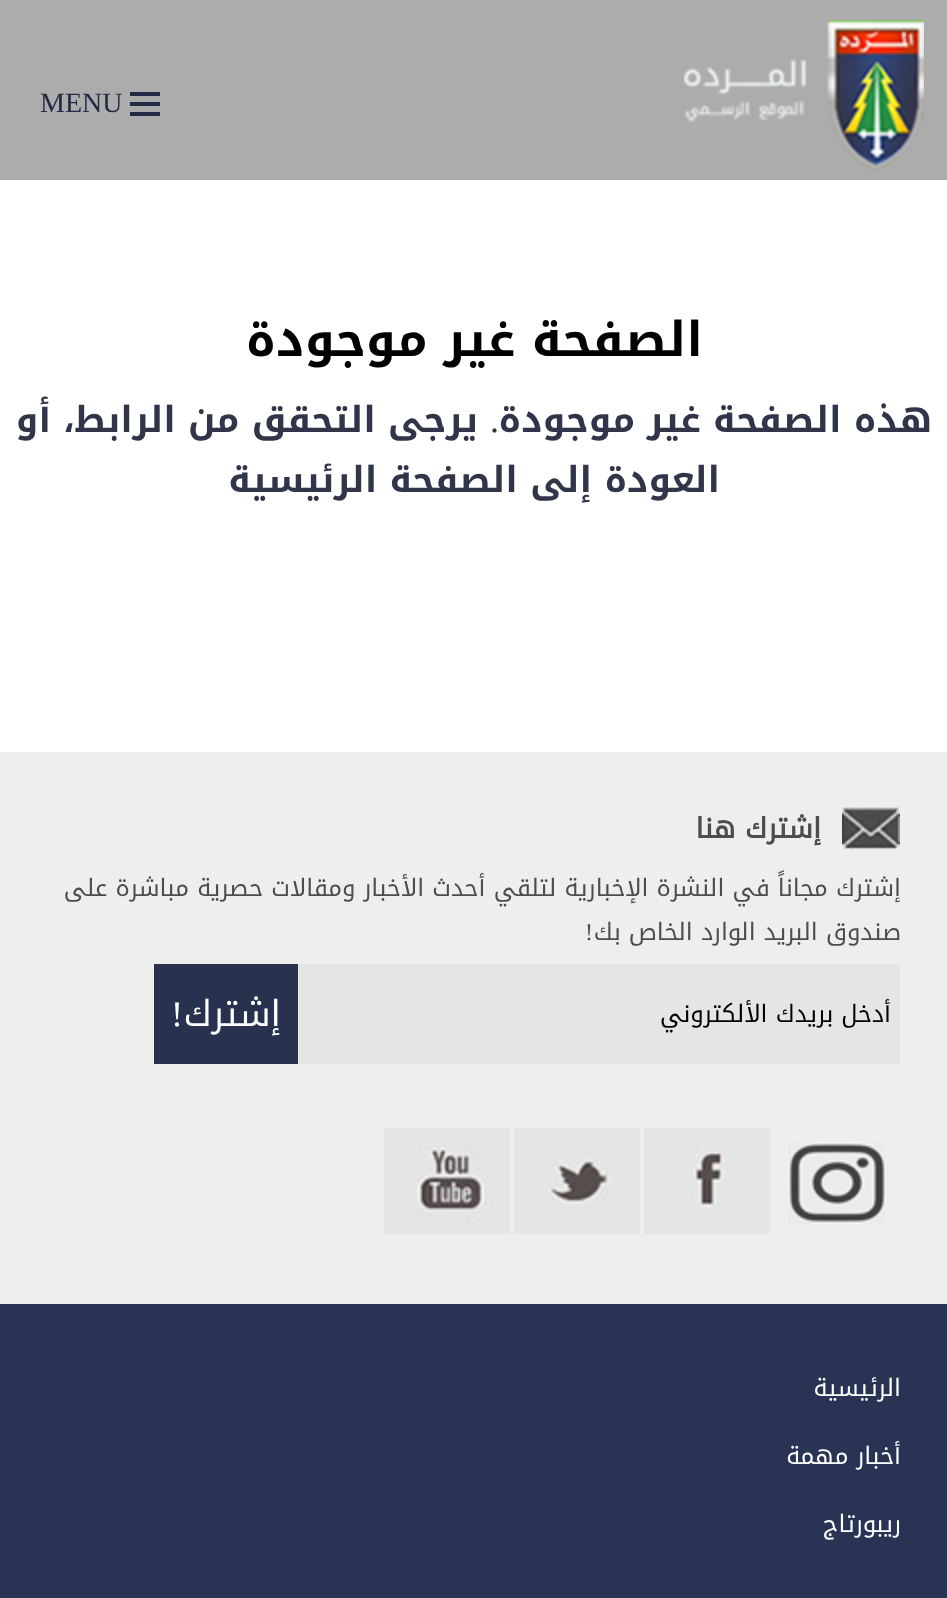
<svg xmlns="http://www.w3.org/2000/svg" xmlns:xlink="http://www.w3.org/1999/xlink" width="947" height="1598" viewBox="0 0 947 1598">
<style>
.cls-1{font:28px Liberation Serif;fill:#222a45}
.cls-2{font:bold 48px 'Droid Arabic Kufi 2';direction:rtl;fill:#000000}
.cls-3{font:bold 36px 'Droid Arabic Kufi 2';direction:rtl;fill:#30354a}
.cls-4{font:36px Liberation Serif;direction:rtl;fill:#30354a}
.cls-5{font:bold 28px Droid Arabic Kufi;direction:rtl;fill:#4d4d4d}
.cls-6{font:24px Droid Arabic Kufi;direction:rtl;fill:#4d4d4d}
.cls-7{font:24px Liberation Serif;direction:rtl;fill:#4d4d4d}
.cls-8{font:24px Droid Arabic Kufi;direction:rtl;fill:#000000}
.cls-9{font:36px Droid Arabic Kufi;direction:rtl;fill:#ffffff}
.cls-10{font:36px Liberation Serif;direction:rtl;fill:#ffffff}
.cls-11{font:24px Droid Arabic Kufi;direction:rtl;fill:#ffffff}
</style>
<rect width="100%" height="100%" fill="#ffffff"/>
<rect fill="#acacac" x="0" y="0" width="947" height="180"/>
<image xlink:href="image0.png" x="684" y="20" width="240" height="150"/>
<rect fill="#222a45" x="130" y="92" width="30" height="4"/>
<rect fill="#222a45" x="130" y="102" width="30" height="4"/>
<rect fill="#222a45" x="130" y="112" width="30" height="4"/>
<rect fill="#eeeeee" x="0" y="752" width="947" height="552"/>
<image xlink:href="image1.png" x="842" y="806" width="58" height="44"/>
<rect fill="#e5e5e5" x="298" y="964" width="602" height="100"/>
<rect fill="#28324e" x="154" y="964" width="144" height="100"/>
<image xlink:href="image2.png" x="788" y="1142" width="98" height="82"/>
<image xlink:href="image3.png" x="644" y="1128" width="126" height="106"/>
<image xlink:href="image4.png" x="514" y="1128" width="126" height="106"/>
<image xlink:href="image5.png" x="384" y="1128" width="126" height="106"/>
<rect fill="#293454" x="0" y="1304" width="947" height="294"/>
<text class="cls-1" x="40" y="112">MENU</text>
<text class="cls-2" x="703" y="356">الصفحة غير موجودة</text>
<text class="cls-3" x="932" y="432">هذه الصفحة غير موجودة</text>
<text class="cls-4" x="499" y="432">.</text>
<text class="cls-3" x="478" y="432">يرجى التحقق من الرابط، أو</text>
<text class="cls-3" x="720" y="492">العودة إلى الصفحة الرئيسية</text>
<text class="cls-5" x="821" y="838">إشترك هنا</text>
<text class="cls-6"><tspan x="901" y="896">إشترك مجاناً في النشرة الإخبارية لتلقي أحدث الأخبار ومقالات حصرية مباشرة على</tspan><tspan x="901" y="940">صندوق البريد الوارد الخاص بك</tspan></text>
<text class="cls-7" x="593" y="940">!</text>
<text class="cls-8" x="891" y="1022">أدخل بريدك الألكتروني</text>
<text class="cls-9" x="281" y="1026">إشترك</text>
<text class="cls-10" x="183" y="1026">!</text>
<text class="cls-11" x="901" y="1396">الرئيسية</text>
<text class="cls-11" x="901" y="1464">أخبار مهمة</text>
<text class="cls-11" x="901" y="1532">ريبورتاج</text>
</svg>
